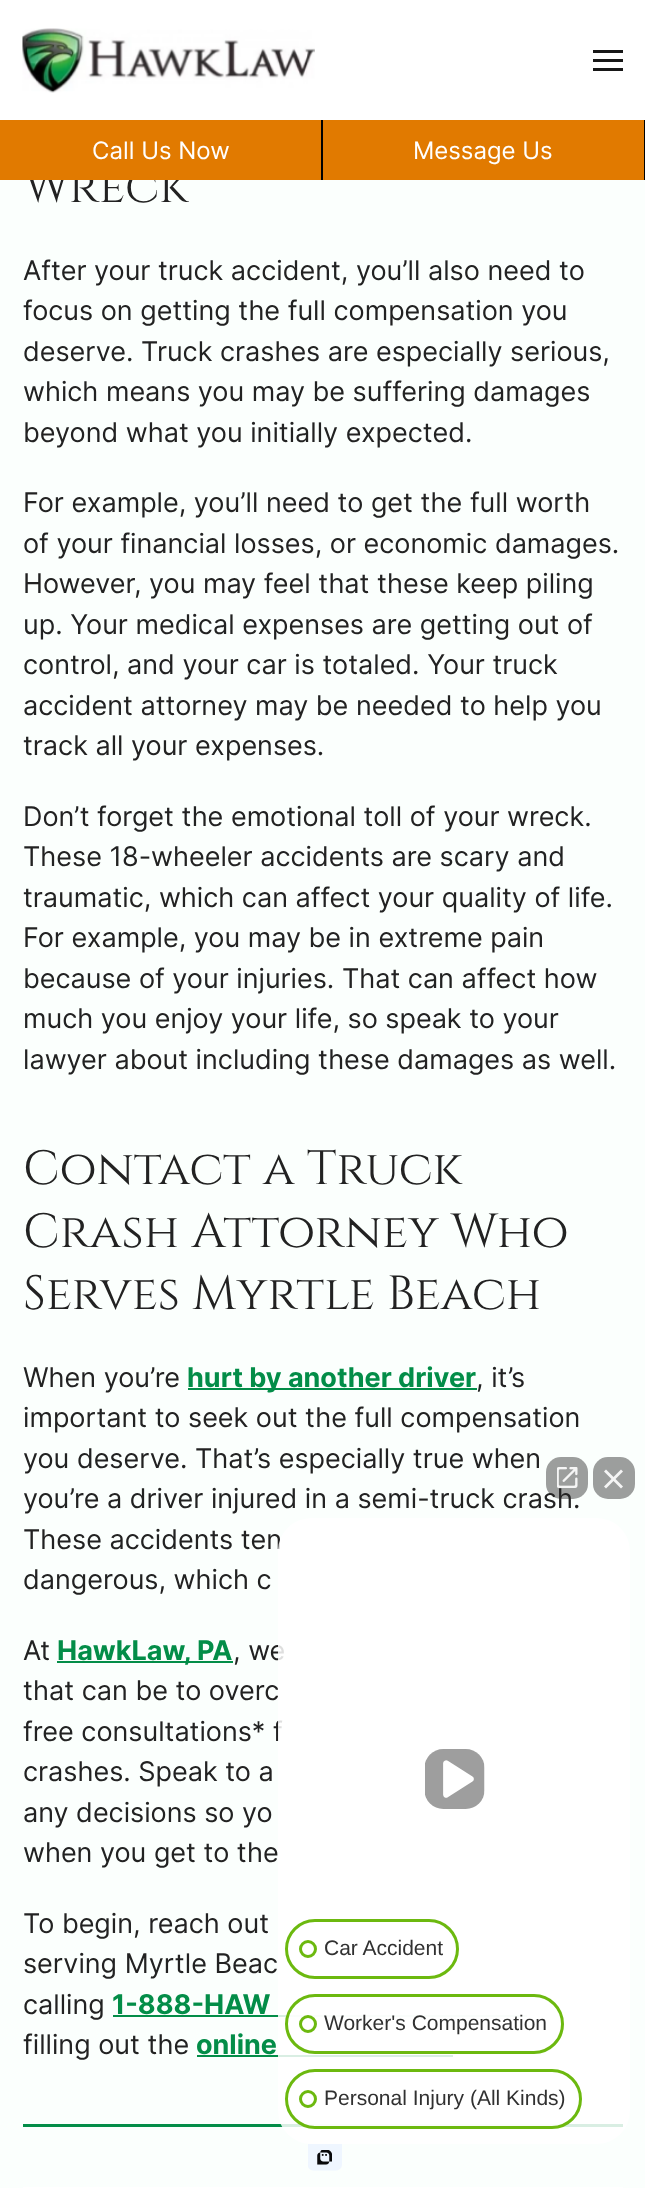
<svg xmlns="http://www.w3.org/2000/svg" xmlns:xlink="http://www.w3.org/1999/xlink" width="645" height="2188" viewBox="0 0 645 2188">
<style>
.cls-1{font:24px Inter;fill:#ffffff}
.cls-2{font:48px Cinzel;fill:#222222}
.cls-3{font:27px Inter;fill:#222222}
.cls-4{font:bold 27px Inter;fill:#038d48}
.cls-5{font:21px Liberation Sans;fill:#313131}
</style>
<rect width="100%" height="100%" fill="#fbfffd"/>
<rect fill="#ffffff" x="0" y="0" width="645" height="120"/>
<image xlink:href="image0.png" x="22" y="28" width="293" height="65"/>
<rect fill="#171717" x="593" y="50" width="30" height="3"/>
<rect fill="#171717" x="593" y="59" width="30" height="3"/>
<rect fill="#171717" x="593" y="68" width="30" height="3"/>
<rect fill="#000000" x="321" y="120" width="2" height="60"/>
<rect fill="#000000" x="644" y="120" width="1" height="60"/>
<rect fill="#e17a00" x="323" y="120" width="321" height="60"/>
<rect fill="#038d48" x="188" y="1388" width="289" height="2"/>
<rect fill="#038d48" x="57" y="1661" width="176" height="2"/>
<rect fill="#038d48" x="113" y="2015" width="414" height="2"/>
<rect fill="#038d48" x="197" y="2055" width="256" height="2"/>
<rect fill="#038d48" x="23" y="2124" width="600" height="3"/>
<rect fill="#ffffff" x="23" y="2187" width="600" height="1"/>
<rect fill="#9c9e9d" x="593" y="1457" width="42" height="42" rx="15"/>
<path fill="#f5f5f5" d="M604 1471.5L606 1469.5L623 1486.5L621 1488.5Z"/>
<path fill="#f5f5f5" d="M621 1469.5L623 1471.5L606 1488.5L604 1486.5Z"/>
<image xlink:href="image3.png" x="308" y="2144" width="34" height="27"/>
<text class="cls-1" x="413" y="159">Message Us</text>
<text class="cls-2" x="23" y="202">Wreck</text>
<rect fill="#e17a00" x="0" y="120" width="321" height="60"/>
<text class="cls-1" x="92" y="159">Call Us Now</text>
<text class="cls-3"><tspan x="23" y="280">After your truck accident, you’ll also need to</tspan><tspan x="23" y="320">focus on getting the full compensation you</tspan><tspan x="23" y="361">deserve. Truck crashes are especially serious,</tspan><tspan x="23" y="401">which means you may be suffering damages</tspan><tspan x="23" y="442">beyond what you initially expected.</tspan></text>
<text class="cls-3"><tspan x="23" y="512">For example, you’ll need to get the full worth</tspan><tspan x="23" y="553">of your financial losses, or economic damages.</tspan><tspan x="23" y="593">However, you may feel that these keep piling</tspan><tspan x="23" y="634">up. Your medical expenses are getting out of</tspan><tspan x="23" y="674">control, and your car is totaled. Your truck</tspan><tspan x="23" y="715">accident attorney may be needed to help you</tspan><tspan x="23" y="755">track all your expenses.</tspan></text>
<text class="cls-3"><tspan x="23" y="826">Don’t forget the emotional toll of your wreck.</tspan><tspan x="23" y="866">These 18-wheeler accidents are scary and</tspan><tspan x="23" y="907">traumatic, which can affect your quality of life.</tspan><tspan x="23" y="947">For example, you may be in extreme pain</tspan><tspan x="23" y="988">because of your injuries. That can affect how</tspan><tspan x="23" y="1028">much you enjoy your life, so speak to your</tspan><tspan x="23" y="1069">lawyer about including these damages as well.</tspan></text>
<text class="cls-2"><tspan x="23" y="1184">Contact a Truck</tspan><tspan x="23" y="1247">Crash Attorney Who</tspan><tspan x="23" y="1309">Serves Myrtle Beach</tspan></text>
<text class="cls-3" x="23" y="1387">When you’re</text>
<text class="cls-4" x="187" y="1387">hurt by another driver</text>
<text class="cls-3" x="476" y="1387">, it’s</text>
<text class="cls-3"><tspan x="23" y="1427">important to seek out the full compensation</tspan><tspan x="23" y="1468">you deserve. That’s especially true when</tspan><tspan x="23" y="1508">you’re a driver injured in a semi-truck crash.</tspan><tspan x="23" y="1549">These accidents ten</tspan><tspan x="23" y="1589">dangerous, which c</tspan></text>
<text class="cls-3" x="23" y="1660">At</text>
<text class="cls-4" x="57" y="1660">HawkLaw, PA</text>
<text class="cls-3" x="233" y="1660">, we</text>
<text class="cls-3"><tspan x="23" y="1700">that can be to overc</tspan><tspan x="23" y="1741">free consultations* f</tspan><tspan x="23" y="1781">crashes. Speak to a</tspan><tspan x="23" y="1822">any decisions so yo</tspan><tspan x="23" y="1862">when you get to the</tspan></text>
<text class="cls-3"><tspan x="23" y="1933">To begin, reach out</tspan><tspan x="23" y="1973">serving Myrtle Beac</tspan><tspan x="23" y="2014">calling</tspan></text>
<text class="cls-4" x="112" y="2014">1-888-HAW</text>
<text class="cls-3" x="23" y="2054">filling out the</text>
<text class="cls-4" x="196" y="2054">online</text>
<rect fill="#ffffff" fill-opacity="0.85" x="278" y="1518" width="352" height="626" rx="33"/>
<rect fill="#272727" fill-opacity="0.45" x="546" y="1457" width="42" height="42" rx="15"/>
<image xlink:href="image1.png" x="557" y="1467" width="21" height="21"/>
<image xlink:href="image2.png" x="425" y="1749" width="60" height="60"/>
<rect fill="none" stroke="#6cb90f" stroke-width="3" x="286.5" y="1920.5" width="171" height="57" rx="28.5"/>
<circle fill="none" stroke="#6cb90f" stroke-width="3" cx="308" cy="1949" r="7.5"/>
<text class="cls-5" x="324" y="1955">Car Accident</text>
<rect fill="#ffffff" fill-opacity="0.85" stroke="#6cb90f" stroke-width="3" x="286.5" y="1995.5" width="276" height="57" rx="28.5"/>
<circle fill="#ffffff" stroke="#6cb90f" stroke-width="3" cx="308" cy="2024" r="7.5"/>
<text class="cls-5" x="324" y="2030">Worker's Compensation</text>
<rect fill="#ffffff" fill-opacity="0.85" stroke="#6cb90f" stroke-width="3" x="286.5" y="2070.5" width="294" height="57" rx="28.5"/>
<circle fill="none" stroke="#6cb90f" stroke-width="3" cx="308" cy="2099" r="7.5"/>
<text class="cls-5" x="324" y="2105">Personal Injury (All Kinds)</text>
</svg>
